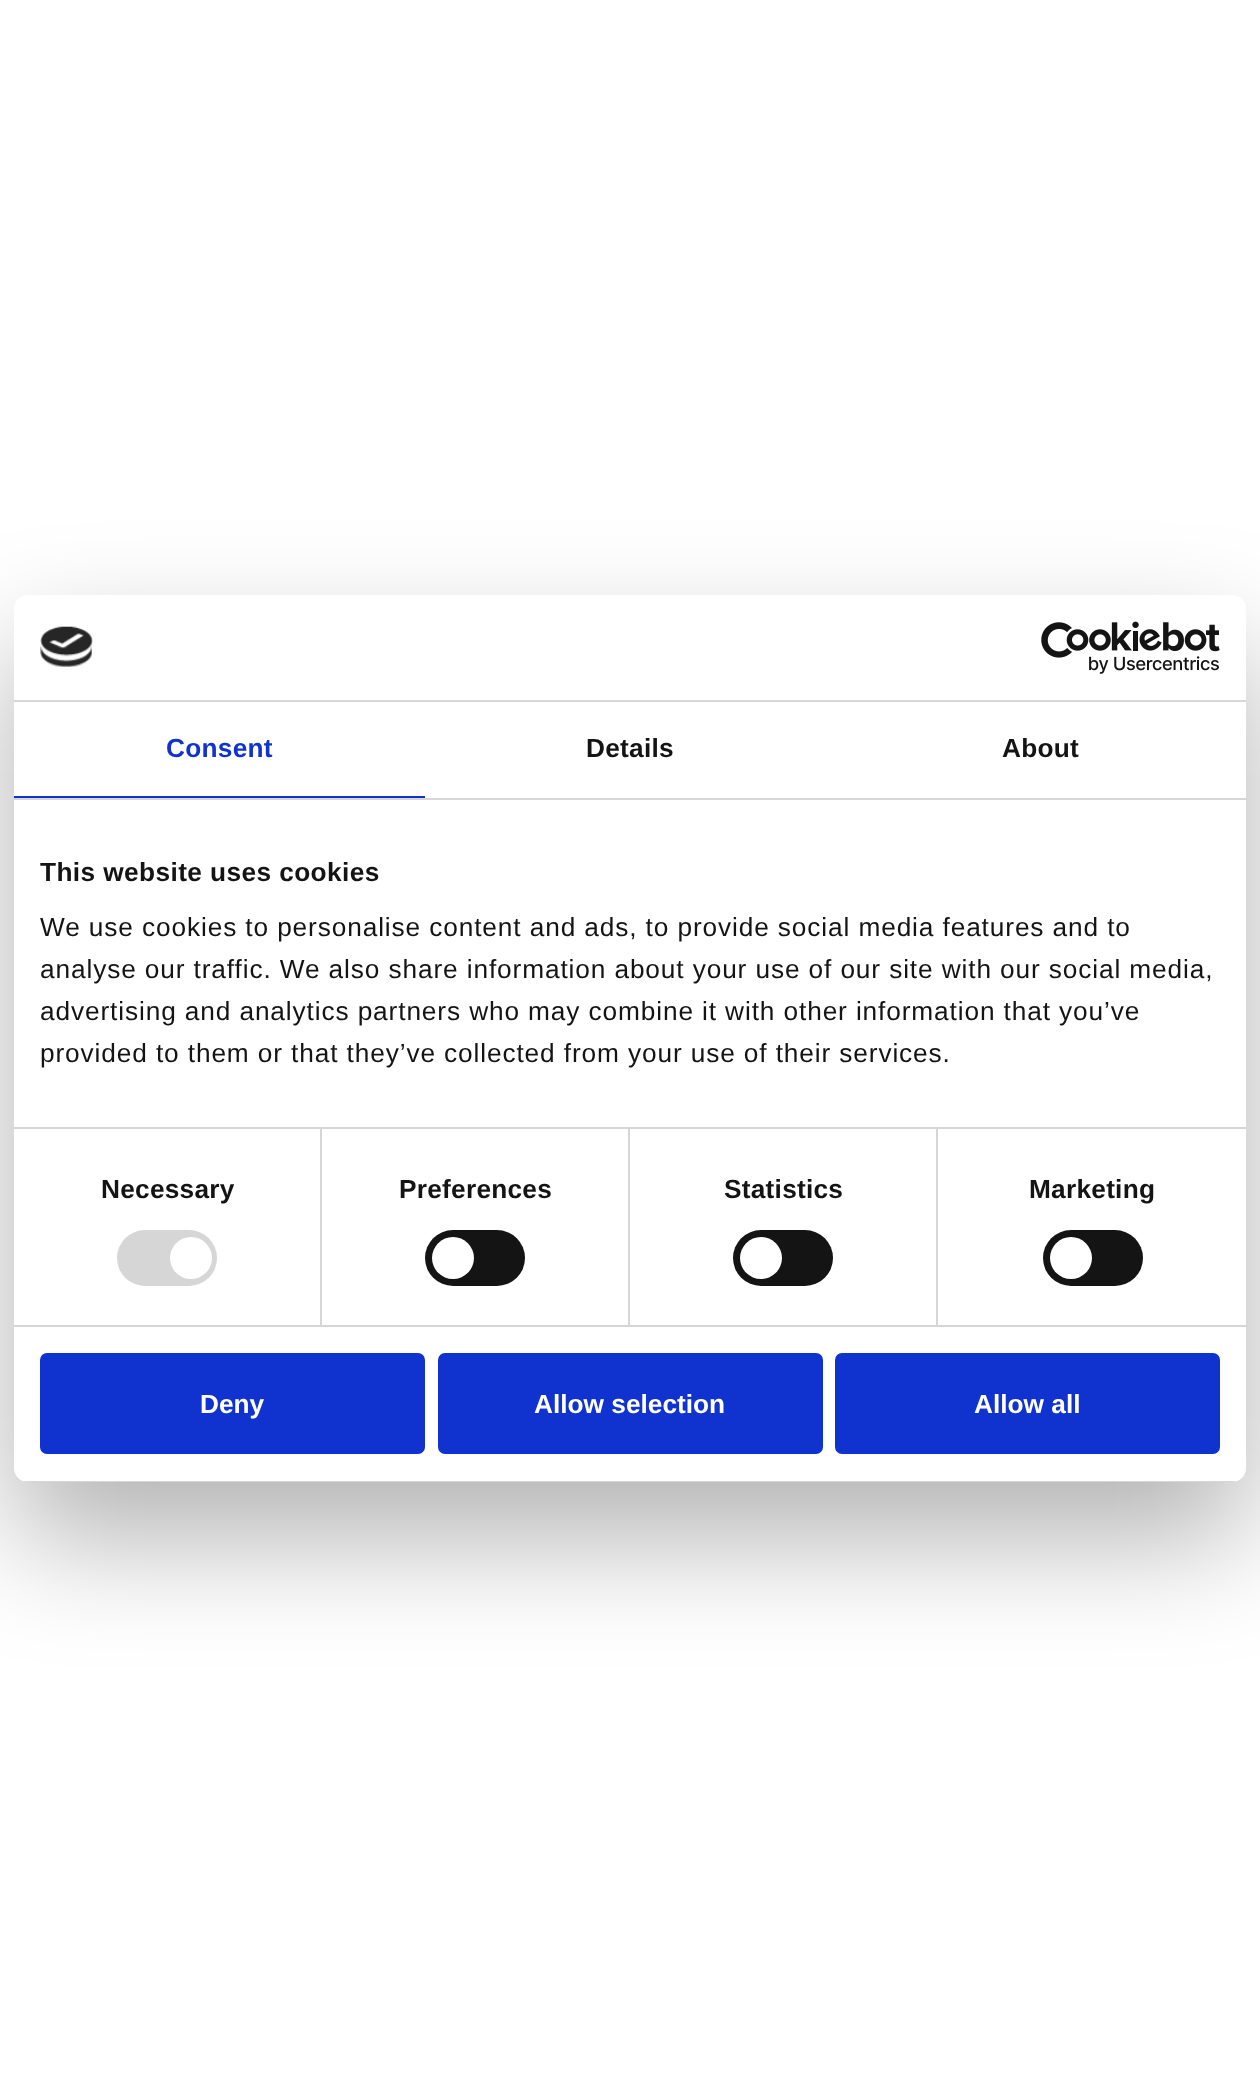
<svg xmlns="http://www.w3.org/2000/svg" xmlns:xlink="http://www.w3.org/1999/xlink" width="1260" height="2077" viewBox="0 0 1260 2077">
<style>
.cls-1{font:bold 26.25px Liberation Sans;letter-spacing:0.25px;fill:#1032cf}
.cls-2{font:bold 26.25px Liberation Sans;letter-spacing:0.25px;fill:#141414}
.cls-3{font:bold 26.25px Liberation Sans;letter-spacing:0.4px;fill:#141414}
.cls-4{font:26.25px Liberation Sans;letter-spacing:0.88px;fill:#141414}
.cls-5{font:bold 26.25px Liberation Sans;fill:#ffffff}
</style>
<defs>
<clipPath id="clip1"><rect x="14" y="595" width="1232" height="887" rx="14"/></clipPath>
</defs>
<rect width="100%" height="100%" fill="#ffffff"/>
<rect fill="#000000" fill-opacity="0.3" filter="blur(59.5px)" x="14" y="651" width="1232" height="887" rx="14"/>
<rect fill="#ffffff" x="14" y="595" width="1232" height="887" rx="14"/>
<rect fill="#d6d6d6" x="14" y="700" width="1232" height="2"/>
<image xlink:href="image0.png" x="40" y="626" width="53" height="41"/>
<image xlink:href="image1.png" x="1041" y="621" width="179" height="53"/>
<rect fill="#d6d6d6" x="14" y="798" width="1232" height="2"/>
<rect fill="#1032cf" x="14" y="796" width="411" height="2"/>
<rect fill="#d6d6d6" x="14" y="1127" width="1232" height="2"/>
<rect fill="#d6d6d6" x="14" y="1325" width="1232" height="2"/>
<rect fill="#d6d6d6" x="320" y="1129" width="2" height="196"/>
<rect fill="#d6d6d6" x="117" y="1230" width="100" height="56" rx="28"/>
<circle fill="#ffffff" cx="191" cy="1258" r="21"/>
<rect fill="#d6d6d6" x="628" y="1129" width="2" height="196"/>
<rect fill="#141414" x="425" y="1230" width="100" height="56" rx="28"/>
<circle fill="#ffffff" cx="453" cy="1258" r="21"/>
<rect fill="#d6d6d6" x="936" y="1129" width="2" height="196"/>
<rect fill="#141414" x="733" y="1230" width="100" height="56" rx="28"/>
<circle fill="#ffffff" cx="761" cy="1258" r="21"/>
<rect fill="#141414" x="1043" y="1230" width="100" height="56" rx="28"/>
<circle fill="#ffffff" cx="1071" cy="1258" r="21"/>
<g clip-path="url(#clip1)">
<rect fill="#d6d6d6" x="23" y="1481" width="1214" height="1"/>
</g>
<rect fill="#1032cf" stroke="#1032cf" stroke-width="4" x="42" y="1355" width="381" height="97" rx="5"/>
<rect fill="#1032cf" stroke="#1032cf" stroke-width="4" x="440" y="1355" width="381" height="97" rx="5"/>
<rect fill="#1032cf" stroke="#1032cf" stroke-width="4" x="837" y="1355" width="381" height="97" rx="5"/>
<text class="cls-1" x="166" y="757">Consent</text>
<text class="cls-2" x="586" y="757">Details</text>
<text class="cls-2" x="1002" y="757">About</text>
<text class="cls-3" x="40" y="881">This website uses cookies</text>
<text class="cls-4"><tspan x="40" y="936">We use cookies to personalise content and ads, to provide social media features and to</tspan><tspan x="40" y="978">analyse our traffic. We also share information about your use of our site with our social media,</tspan><tspan x="40" y="1020">advertising and analytics partners who may combine it with other information that you’ve</tspan><tspan x="40" y="1062">provided to them or that they’ve collected from your use of their services.</tspan></text>
<text class="cls-2" x="101" y="1198">Necessary</text>
<text class="cls-2" x="399" y="1198">Preferences</text>
<text class="cls-2" x="724" y="1198">Statistics</text>
<text class="cls-2" x="1029" y="1198">Marketing</text>
<text class="cls-5" x="200" y="1413">Deny</text>
<text class="cls-5" x="534" y="1413">Allow selection</text>
<text class="cls-5" x="974" y="1413">Allow all</text>
</svg>
